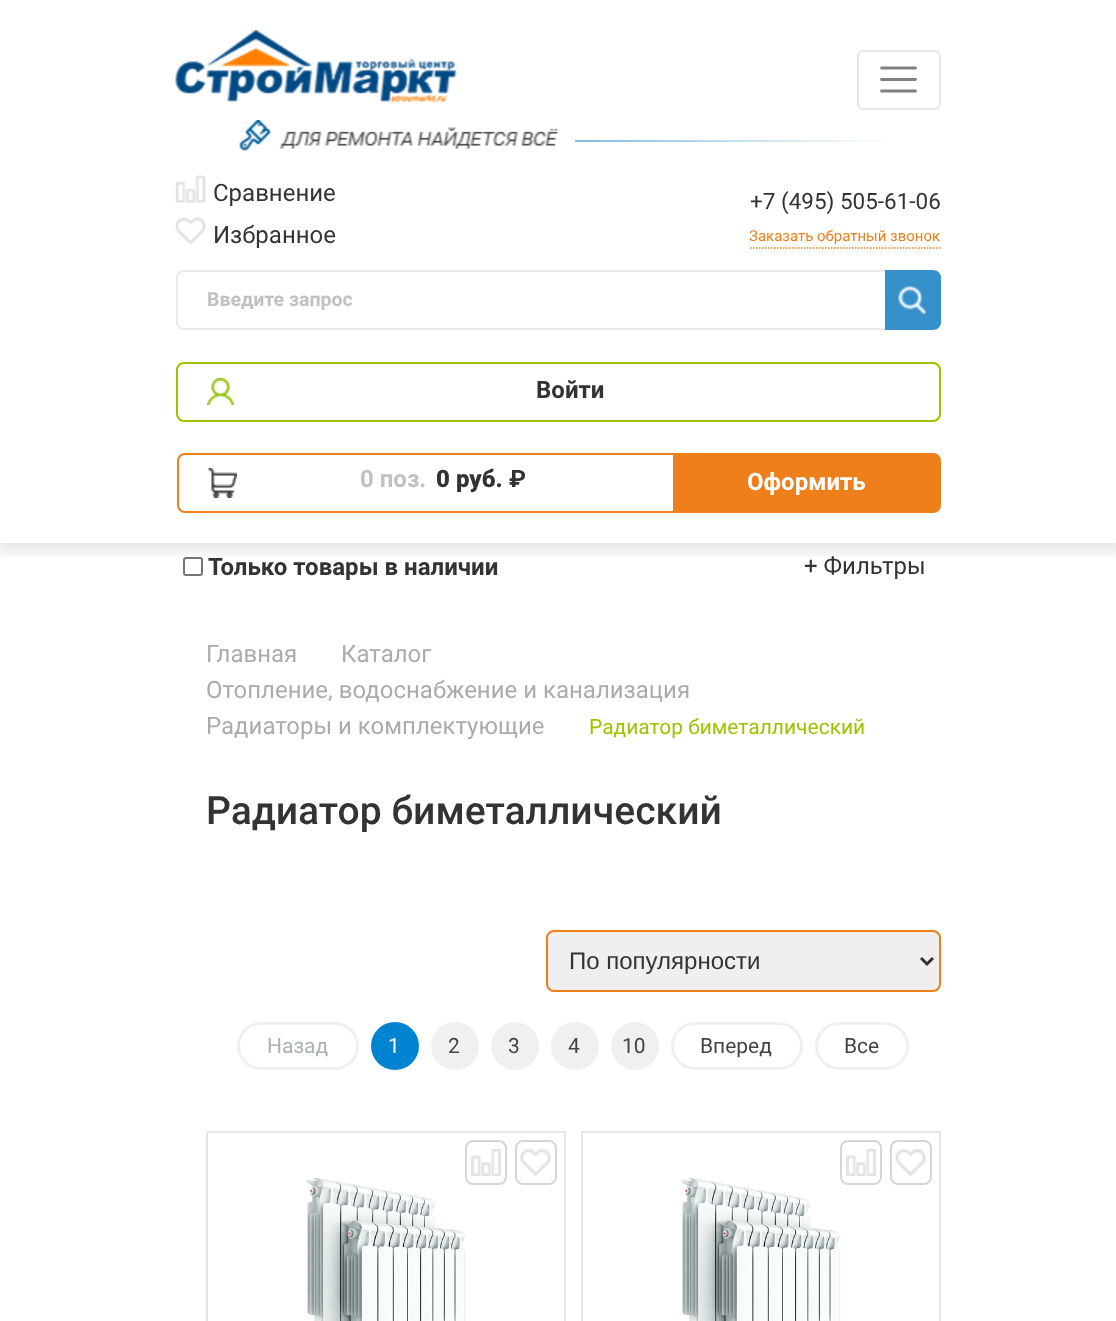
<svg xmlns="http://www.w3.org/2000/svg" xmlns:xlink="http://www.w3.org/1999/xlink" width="1116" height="1321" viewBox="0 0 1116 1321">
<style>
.cls-1{font:24px Roboto;fill:#333333}
.cls-2{font:22.5px Roboto;fill:#333333}
.cls-3{font:15px Roboto;fill:#ef7f1a}
.cls-4{font:bold 19.5px Roboto;fill:#c1c1c1}
.cls-5{font:bold 24px Roboto;fill:#333333}
.cls-6{font:bold 24px Roboto;fill:#c1c1c1}
.cls-7{font:900 24px Roboto;fill:#333333}
.cls-8{font:bold 24px Roboto;fill:#ffffff}
.cls-9{font:24px Roboto;fill:#ababab}
.cls-10{font:21px Roboto;fill:#9ec200}
.cls-11{font:500 39px Roboto;fill:#333333}
.cls-12{font:24px Liberation Sans;fill:#333333}
.cls-13{font:21px Roboto;fill:#aab1b4}
.cls-14{font:21px Roboto;fill:#ffffff}
.cls-15{font:21px Roboto;fill:#444444}
</style>
<defs>
<clipPath id="clip1"><rect x="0" y="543" width="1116" height="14"/></clipPath>
<linearGradient id="g1" gradientUnits="userSpaceOnUse" x1="575" y1="140" x2="893" y2="140"><stop offset="0" stop-color="#86bcdf"/><stop offset="1" stop-color="#ffffff"/></linearGradient>
</defs>
<rect width="100%" height="100%" fill="#ffffff"/>
<rect fill="none" stroke="#767676" stroke-width="2" x="184" y="558" width="18" height="17" rx="2"/>
<g clip-path="url(#clip1)">
<rect fill="#000000" fill-opacity="0.1" filter="blur(7.5px)" x="-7" y="-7" width="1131" height="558"/>
</g>
<image xlink:href="image0.png" x="175" y="30" width="282" height="72"/>
<rect fill="none" stroke="#e6e6e6" stroke-width="2" x="858" y="51" width="82" height="58" rx="5"/>
<path fill="none" stroke="#808080" stroke-width="2.8" stroke-linecap="round" d="M881.5 68H915.5M881.5 79.5H915.5M881.5 91H915.5"/>
<image xlink:href="image1.png" x="239" y="120" width="320" height="31"/>
<rect fill="url(#g1)" x="575" y="140" width="318" height="2"/>
<image xlink:href="image2.png" x="175" y="175" width="31" height="28"/>
<image xlink:href="image3.png" x="175" y="217" width="31" height="28"/>
<path fill="none" stroke="#ef7f1a" stroke-width="1.5" stroke-dasharray="1.5 1.5" d="M750 248H940.5"/>
<path fill="none" stroke="#e9e9e9" stroke-width="2" d="M184 271H890V329H184C180 329 177 326 177 322V278C177 274 180 271 184 271Z"/>
<path fill="#3590ca" d="M885 270H933C937.5 270 941 273.5 941 278V322C941 326.5 937.5 330 933 330H885Z"/>
<image xlink:href="image4.png" x="898" y="286" width="28" height="28"/>
<image xlink:href="image5.png" x="207" y="378" width="27" height="27"/>
<rect fill="none" stroke="#9ec200" stroke-width="2" x="177" y="363" width="763" height="58" rx="7"/>
<image xlink:href="image6.png" x="208" y="468" width="29" height="30"/>
<path fill="#ef7f1a" stroke="#ef7f1a" stroke-width="2" d="M675 454H933C937 454 940 457 940 461V505C940 509 937 512 933 512H675Z"/>
<path fill="none" stroke="#ef7f1a" stroke-width="2" d="M185 454H674V512H185C181 512 178 509 178 505V461C178 457 181 454 185 454Z"/>
<rect fill="#efefef" stroke="#ef7f1a" stroke-width="2" x="547" y="931" width="393" height="60" rx="7"/>
<path fill="none" stroke="#333333" stroke-width="3" d="M921 958L927 964L933 958"/>
<rect fill="none" stroke="#eff0f1" stroke-width="3" x="238.5" y="1023.5" width="119" height="45" rx="22.5"/>
<circle fill="#0083d1" cx="395" cy="1046" r="24"/>
<circle fill="#eff0f1" cx="455" cy="1046" r="24"/>
<circle fill="#eff0f1" cx="515" cy="1046" r="24"/>
<circle fill="#eff0f1" cx="575" cy="1046" r="24"/>
<circle fill="#eff0f1" cx="635" cy="1046" r="24"/>
<rect fill="none" stroke="#eff0f1" stroke-width="3" x="672.5" y="1023.5" width="129" height="45" rx="22.5"/>
<rect fill="none" stroke="#eff0f1" stroke-width="3" x="816.5" y="1023.5" width="91" height="45" rx="22.5"/>
<rect fill="none" stroke="#e5e5e5" stroke-width="2" x="207" y="1132" width="358" height="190"/>
<image xlink:href="image7.png" x="471" y="1149" width="30" height="27"/>
<image xlink:href="image9.png" x="306" y="1178" width="160" height="143"/>
<rect fill="none" stroke="#d6d6d6" stroke-width="2" x="466" y="1141" width="40" height="43" rx="7"/>
<image xlink:href="image8.png" x="520" y="1149" width="31" height="27"/>
<rect fill="none" stroke="#d6d6d6" stroke-width="2" x="516" y="1141" width="40" height="43" rx="7"/>
<rect fill="none" stroke="#e5e5e5" stroke-width="2" x="582" y="1132" width="358" height="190"/>
<image xlink:href="image10.png" x="846" y="1149" width="30" height="27"/>
<image xlink:href="image9.png" x="681" y="1178" width="160" height="143"/>
<rect fill="none" stroke="#d6d6d6" stroke-width="2" x="841" y="1141" width="40" height="43" rx="7"/>
<image xlink:href="image11.png" x="895" y="1149" width="31" height="27"/>
<rect fill="none" stroke="#d6d6d6" stroke-width="2" x="891" y="1141" width="40" height="43" rx="7"/>
<text class="cls-1"><tspan x="213" y="201">Сравнение</tspan><tspan x="213" y="243">Избранное</tspan></text>
<text class="cls-2" x="750" y="209">+7 (495) 505-61-06</text>
<text class="cls-3" x="749" y="241">Заказать обратный звонок</text>
<text class="cls-4" x="207" y="306">Введите запрос</text>
<text class="cls-5" x="536" y="398">Войти</text>
<text class="cls-6" x="360" y="487">0 поз.</text>
<text class="cls-7" x="436" y="487">0 руб.</text>
<text class="cls-5" x="509" y="487">₽</text>
<text class="cls-8" x="747" y="490">Оформить</text>
<text class="cls-5" x="208" y="575">Только товары в наличии</text>
<text class="cls-1" x="804" y="574">+ Фильтры</text>
<text class="cls-9" x="206" y="662">Главная</text>
<text class="cls-9" x="341" y="662">Каталог</text>
<text class="cls-9"><tspan x="206" y="698">Отопление, водоснабжение и канализация</tspan><tspan x="206" y="734">Радиаторы и комплектующие</tspan></text>
<text class="cls-10" x="589" y="734">Радиатор биметаллический</text>
<text class="cls-11" x="206" y="824">Радиатор биметаллический</text>
<text class="cls-12" x="569" y="969">По популярности</text>
<text class="cls-13" x="267" y="1053">Назад</text>
<text class="cls-14" x="388" y="1053">1</text>
<text class="cls-15" x="448" y="1053">2</text>
<text class="cls-15" x="508" y="1053">3</text>
<text class="cls-15" x="568" y="1053">4</text>
<text class="cls-15" x="622" y="1053">10</text>
<text class="cls-15" x="700" y="1053">Вперед</text>
<text class="cls-15" x="844" y="1053">Все</text>
</svg>
